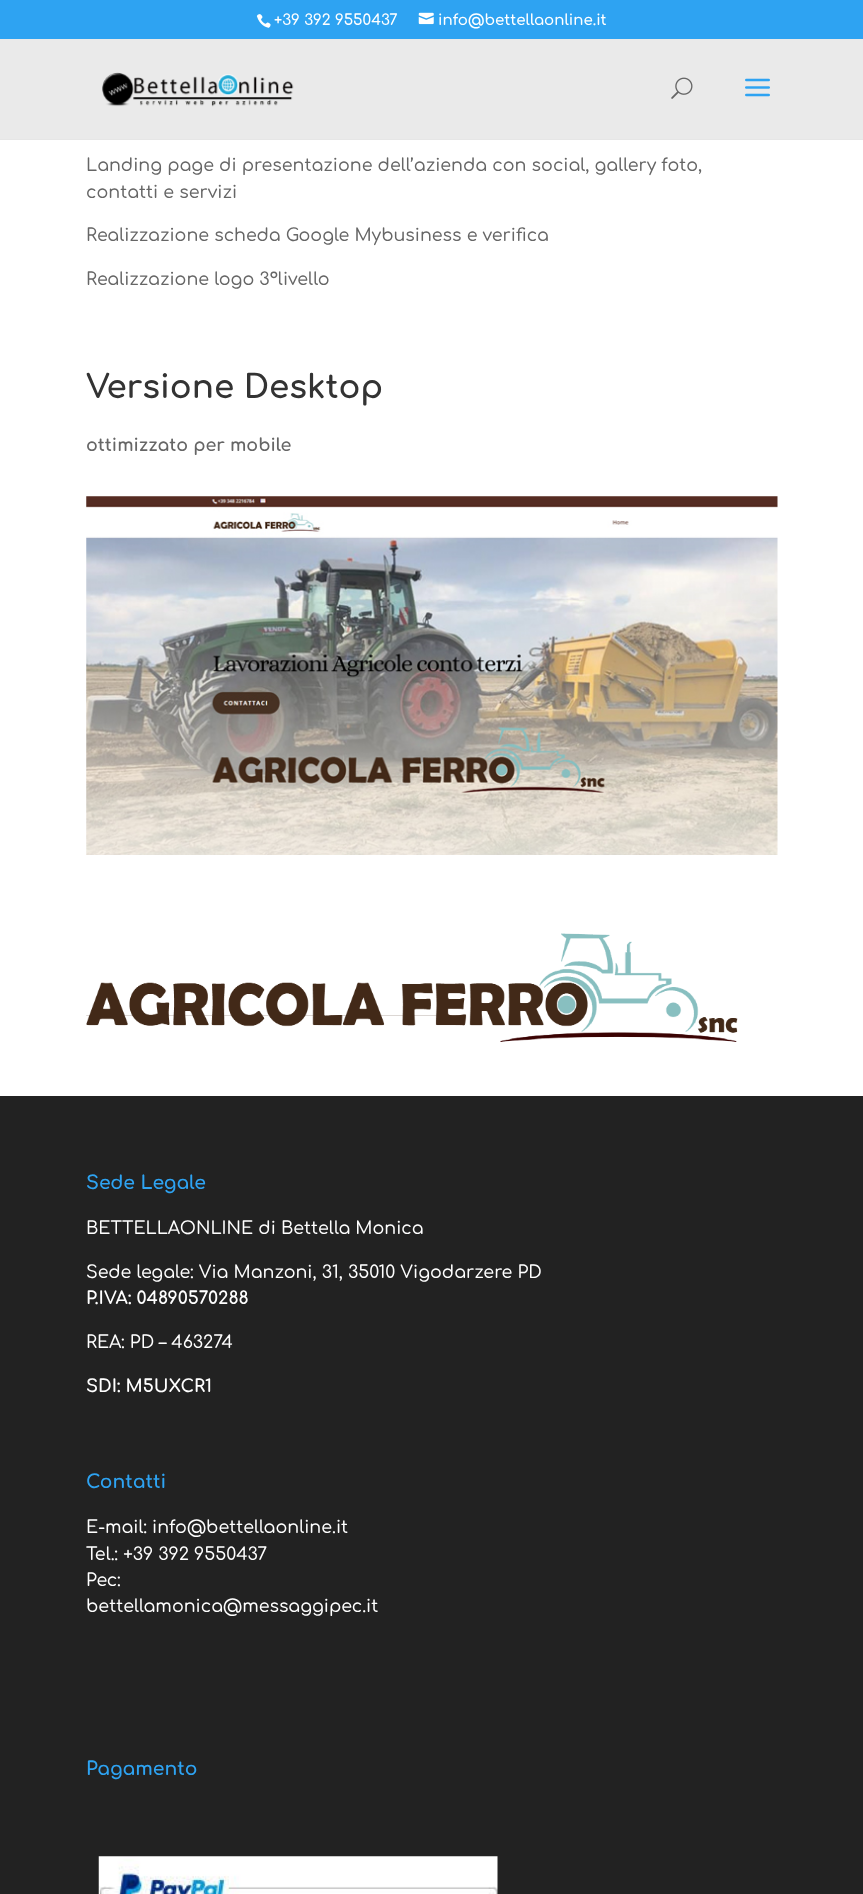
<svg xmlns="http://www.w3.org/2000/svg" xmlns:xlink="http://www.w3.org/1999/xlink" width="863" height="1894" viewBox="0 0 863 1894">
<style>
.cls-1{font:600 15px Comfortaa;fill:#ffffff}
.cls-2{font:500 17.5px Comfortaa;fill:#666666}
.cls-3{font:bold 32.5px Comfortaa;fill:#333333}
.cls-4{font:bold 17.5px Comfortaa;fill:#666666}
.cls-5{font:bold 18.75px Comfortaa;fill:#2ea3f2}
.cls-6{font:500 17.5px Comfortaa;fill:#ffffff}
.cls-7{font:bold 17.5px Comfortaa;fill:#ffffff}
</style>
<rect width="100%" height="100%" fill="#ffffff"/>
<rect fill="#2ea3f2" x="0" y="0" width="863" height="39"/>
<image xlink:href="image0.png" x="256" y="14" width="15" height="14"/>
<image xlink:href="image1.png" x="418" y="12" width="16" height="13"/>
<path fill="#e6e6e6" d="M0 139V140H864V40V139Z"/>
<rect fill="#eaeaea" x="0" y="39" width="863" height="100"/>
<image xlink:href="image2.png" x="102" y="72" width="192" height="35"/>
<image xlink:href="image3.png" x="671" y="77" width="22" height="22"/>
<image xlink:href="image4.png" x="745" y="78" width="25" height="19"/>
<image xlink:href="image5.png" x="86" y="496" width="692" height="359"/>
<image xlink:href="image6.png" x="86" y="933" width="652" height="109"/>
<rect fill="#222222" x="0" y="1096" width="863" height="798"/>
<image xlink:href="image7.png" x="98" y="1856" width="400" height="38"/>
<text class="cls-1" x="274" y="25">+39 392 9550437</text>
<text class="cls-1" x="438" y="25">info@bettellaonline.it</text>
<text class="cls-2"><tspan x="86" y="171">Landing page di presentazione dell’azienda con social, gallery foto,</tspan><tspan x="86" y="198">contatti e servizi</tspan></text>
<text class="cls-2" x="86" y="241">Realizzazione scheda Google Mybusiness e verifica</text>
<text class="cls-2" x="86" y="285">Realizzazione logo 3°livello</text>
<text class="cls-3" x="86" y="398">Versione Desktop</text>
<text class="cls-4" x="86" y="451">ottimizzato per mobile</text>
<text class="cls-5" x="86" y="1189">Sede Legale</text>
<text class="cls-6" x="86" y="1234">BETTELLAONLINE di Bettella Monica</text>
<text class="cls-6" x="86" y="1278">Sede legale: Via Manzoni, 31, 35010 Vigodarzere PD</text>
<text class="cls-7" x="86" y="1304">P.IVA: 04890570288</text>
<text class="cls-6" x="86" y="1348">REA: PD – 463274</text>
<text class="cls-7" x="86" y="1392">SDI: M5UXCR1</text>
<text class="cls-5" x="86" y="1488">Contatti</text>
<text class="cls-6"><tspan x="86" y="1533">E-mail: info@bettellaonline.it</tspan><tspan x="86" y="1560">Tel.: +39 392 9550437</tspan><tspan x="86" y="1586">Pec:</tspan><tspan x="86" y="1612">bettellamonica@messaggipec.it</tspan></text>
<text class="cls-5" x="86" y="1775">Pagamento</text>
</svg>
